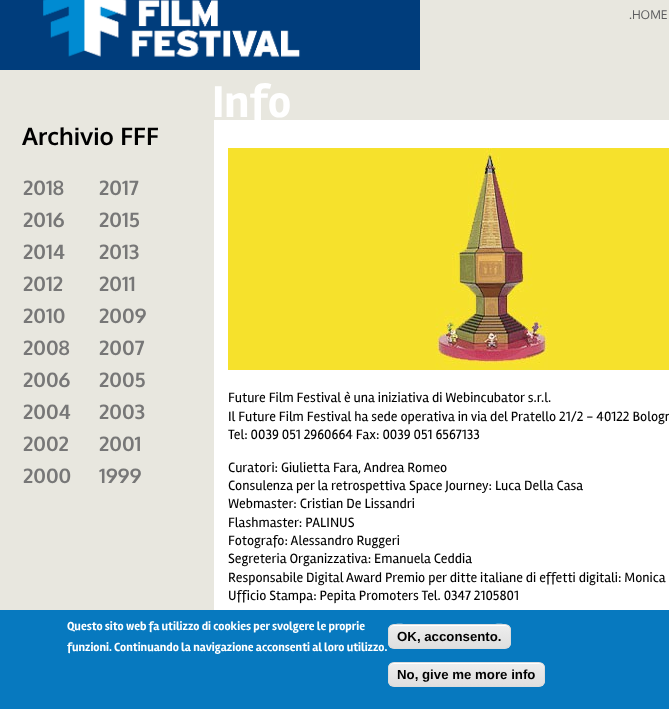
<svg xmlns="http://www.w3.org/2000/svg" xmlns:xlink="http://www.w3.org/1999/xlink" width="669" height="709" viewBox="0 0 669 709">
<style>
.cls-1{font:12px Oxygen;fill:#5d5d5f}
.cls-2{font:bold 24px Oxygen;fill:#000000}
.cls-3{font:bold 20px Oxygen;fill:#777777}
.cls-4{font:bold 46px Rambla;fill:#ffffff}
.cls-5{font:14px Rambla;fill:#000000}
.cls-6{font:bold 12px Rambla;fill:#ffffff}
.cls-7{font:bold 13.25px Liberation Sans;fill:#000000}
</style>
<defs>
<clipPath id="clip1"><rect x="388" y="624" width="123" height="25" rx="6"/></clipPath>
<linearGradient id="g1" gradientUnits="userSpaceOnUse" x1="450" y1="625" x2="450" y2="648"><stop offset="0.05" stop-color="#ededed"/><stop offset="1" stop-color="#dfdfdf"/></linearGradient>
<clipPath id="clip2"><rect x="388" y="662" width="157" height="25" rx="6"/></clipPath>
<linearGradient id="g2" gradientUnits="userSpaceOnUse" x1="467" y1="663" x2="467" y2="686"><stop offset="0.05" stop-color="#ededed"/><stop offset="1" stop-color="#dfdfdf"/></linearGradient>
</defs>
<rect width="100%" height="100%" fill="#e8e7df"/>
<image xlink:href="image0.png" x="0" y="0" width="420" height="70"/>
<rect fill="#ffffff" x="214" y="120" width="455" height="490"/>
<image xlink:href="image1.png" x="228" y="148" width="441" height="222"/>
<rect fill="#0779bf" x="0" y="610" width="669" height="99"/>
<g clip-path="url(#clip1)">
<rect fill="url(#g1)" x="388" y="625" width="123" height="23"/>
</g>
<path fill="#ffffff" d="M394 626H505C508 626 510 628 510 631C510 620 491 625 486 625H412C408 625 389 620 389 631C389 628 391 626 394 626Z"/>
<rect fill="none" stroke="#dcdcdc" x="388.5" y="624.5" width="122" height="24" rx="5.5"/>
<g clip-path="url(#clip2)">
<rect fill="url(#g2)" x="388" y="663" width="157" height="23"/>
</g>
<path fill="#ffffff" d="M394 664H539C542 664 544 666 544 669V668C544 665 542 663 539 663H394C391 663 389 665 389 668V669C389 666 391 664 394 664Z"/>
<rect fill="none" stroke="#dcdcdc" x="388.5" y="662.5" width="156" height="24" rx="5.5"/>
<text class="cls-1" x="629" y="19">.HOME</text>
<text class="cls-2" x="22" y="145">Archivio FFF</text>
<text class="cls-3" x="23" y="195">2018</text>
<text class="cls-3" x="99" y="195">2017</text>
<text class="cls-3" x="23" y="227">2016</text>
<text class="cls-3" x="99" y="227">2015</text>
<text class="cls-3" x="23" y="259">2014</text>
<text class="cls-3" x="99" y="259">2013</text>
<text class="cls-3" x="23" y="291">2012</text>
<text class="cls-3" x="99" y="291">2011</text>
<text class="cls-3" x="23" y="323">2010</text>
<text class="cls-3" x="99" y="323">2009</text>
<text class="cls-3" x="23" y="355">2008</text>
<text class="cls-3" x="99" y="355">2007</text>
<text class="cls-3" x="23" y="387">2006</text>
<text class="cls-3" x="99" y="387">2005</text>
<text class="cls-3" x="23" y="419">2004</text>
<text class="cls-3" x="99" y="419">2003</text>
<text class="cls-3" x="23" y="451">2002</text>
<text class="cls-3" x="99" y="451">2001</text>
<text class="cls-3" x="23" y="483">2000</text>
<text class="cls-3" x="99" y="483">1999</text>
<text class="cls-4" x="212" y="117">Info</text>
<text class="cls-5"><tspan x="228" y="402">Future Film Festival è una iniziativa di Webincubator s.r.l.</tspan><tspan x="228" y="421">Il Future Film Festival ha sede operativa in via del Pratello 21/2 - 40122 Bologn</tspan><tspan x="228" y="439">Tel: 0039 051 2960664 Fax: 0039 051 6567133</tspan></text>
<text class="cls-5"><tspan x="228" y="472">Curatori: Giulietta Fara, Andrea Romeo</tspan><tspan x="228" y="490">Consulenza per la retrospettiva Space Journey: Luca Della Casa</tspan><tspan x="228" y="508">Webmaster: Cristian De Lissandri</tspan><tspan x="228" y="527">Flashmaster: PALINUS</tspan><tspan x="228" y="545">Fotografo: Alessandro Ruggeri</tspan><tspan x="228" y="563">Segreteria Organizzativa: Emanuela Ceddia</tspan><tspan x="228" y="582">Responsabile Digital Award Premio per ditte italiane di effetti digitali: Monica</tspan><tspan x="228" y="600">Ufficio Stampa: Pepita Promoters Tel. 0347 2105801</tspan></text>
<text class="cls-6"><tspan x="67" y="630">Questo sito web fa utilizzo di cookies per svolgere le proprie</tspan><tspan x="67" y="651">funzioni. Continuando la navigazione acconsenti al loro utilizzo.</tspan></text>
<text class="cls-7" x="397" y="641">OK, acconsento.</text>
<text class="cls-7" x="397" y="679">No, give me more info</text>
</svg>
